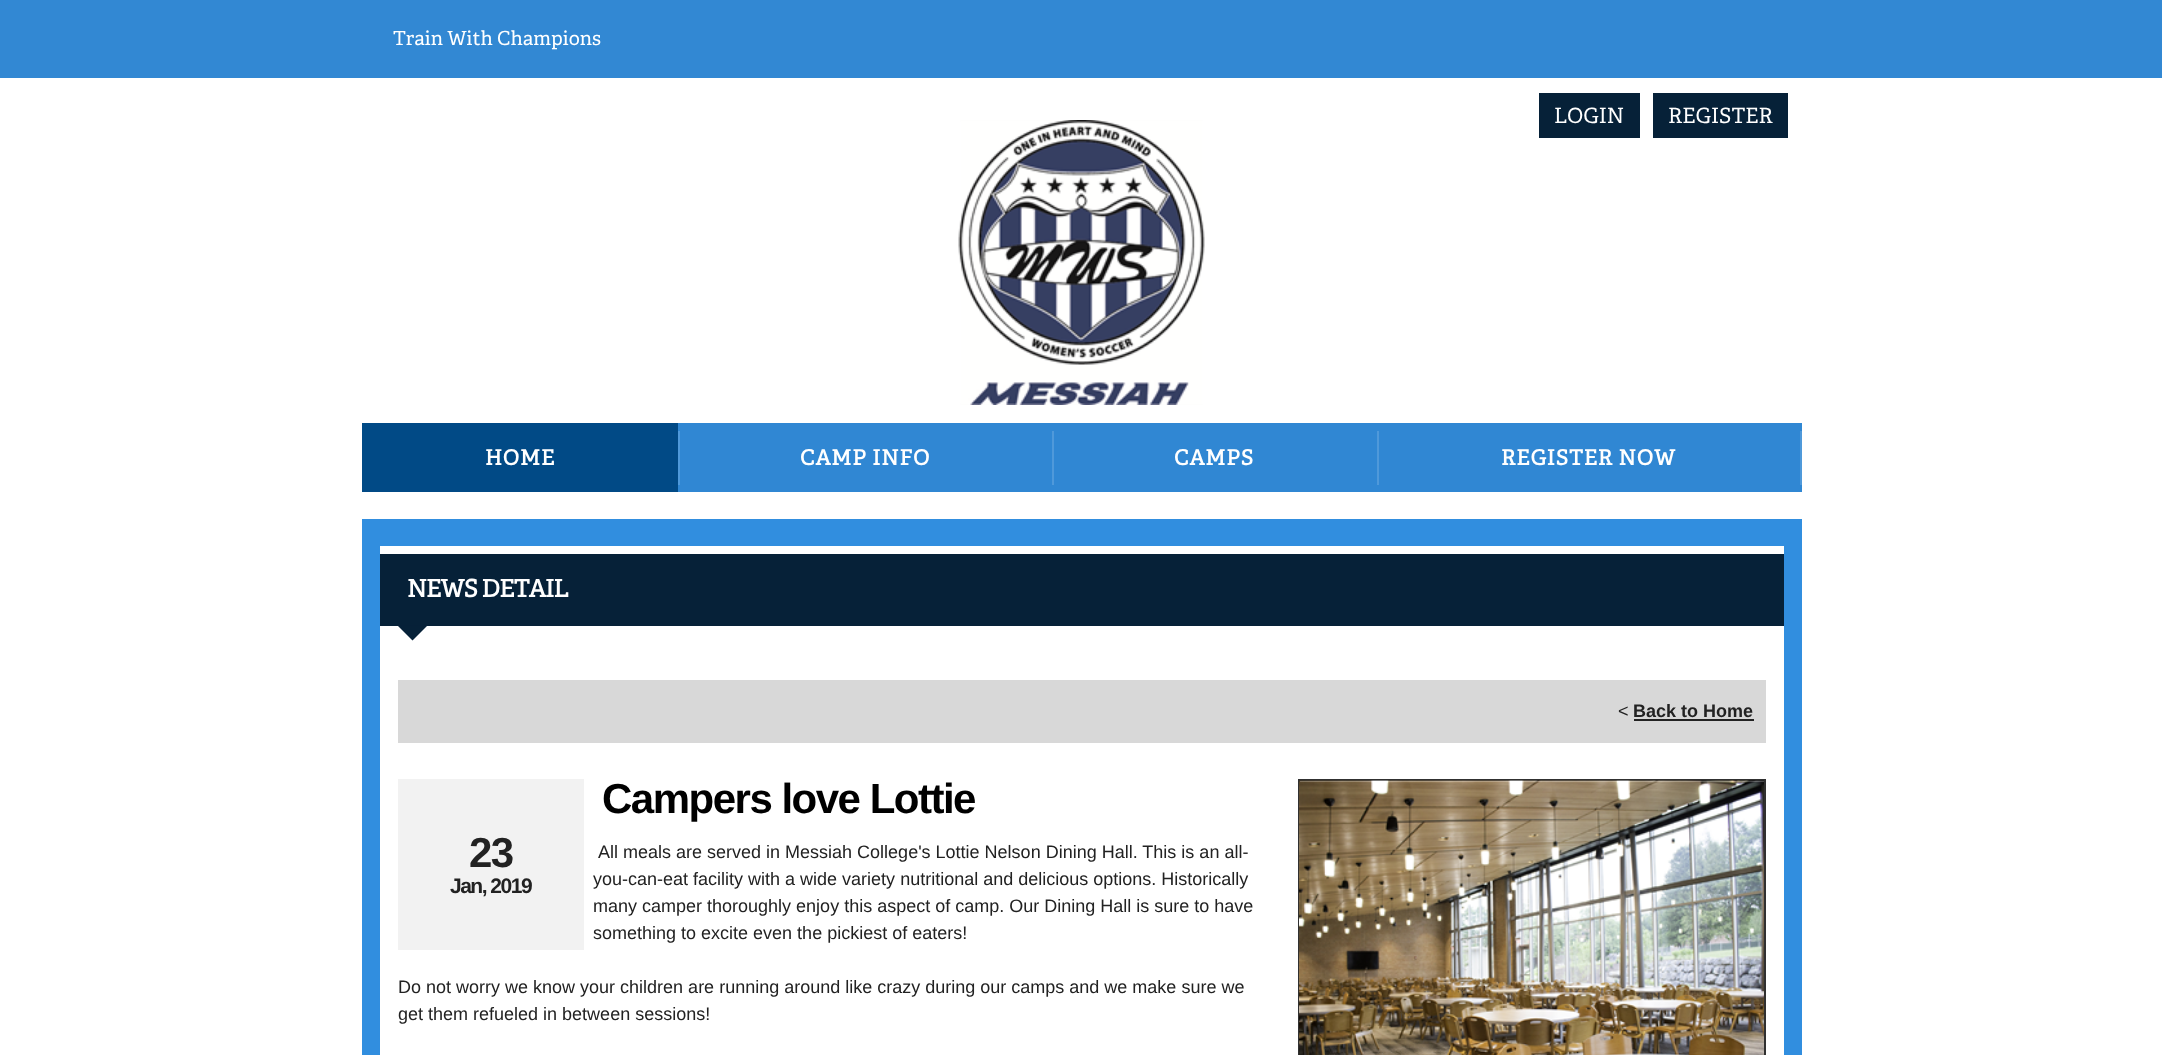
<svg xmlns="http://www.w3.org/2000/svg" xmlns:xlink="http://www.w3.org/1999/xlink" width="2162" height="1055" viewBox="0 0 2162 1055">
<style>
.cls-1{font:19.5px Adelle;fill:#ffffff}
.cls-2{font:21px Adelle;fill:#ffffff}
.cls-3{font:bold 21px Adelle;letter-spacing:0.9px;fill:#ffffff}
.cls-4{font:bold 24px Adelle;letter-spacing:-0.75px;fill:#ffffff}
.cls-5{font:18px Liberation Sans;fill:#222222}
.cls-6{font:bold 18px Liberation Sans;fill:#222222}
.cls-7{font:bold 42px Liberation Sans;letter-spacing:-1.5px;fill:#000000}
.cls-8{font:bold 42px Liberation Sans;letter-spacing:-1.5px;fill:#222222}
.cls-9{font:bold 21px Liberation Sans;letter-spacing:-1.5px;fill:#222222}
</style>
<rect width="100%" height="100%" fill="#ffffff"/>
<rect fill="#3288d3" x="0" y="0" width="2162" height="78"/>
<rect fill="#062138" x="1539" y="93" width="101" height="45"/>
<rect fill="#062138" x="1653" y="93" width="135" height="45"/>
<image xlink:href="image0.png" x="958" y="120" width="247" height="285"/>
<rect fill="#3087d3" x="678" y="423" width="1124" height="69"/>
<rect fill="#014a86" x="362" y="423" width="316" height="69"/>
<rect fill="#4f99da" x="678" y="431" width="2" height="54"/>
<rect fill="#4f99da" x="1052" y="431" width="2" height="54"/>
<rect fill="#4f99da" x="1377" y="431" width="2" height="54"/>
<rect fill="#4f99da" x="1800" y="431" width="2" height="54"/>
<rect fill="#318edf" x="362" y="519" width="1440" height="536"/>
<rect fill="#062138" x="380" y="554" width="1404" height="72"/>
<rect fill="#ffffff" x="380" y="546" width="1404" height="8"/>
<rect fill="#ffffff" x="380" y="626" width="1404" height="429"/>
<path fill="#062138" d="M397.5 625.5H427.5L412.5 640.5Z"/>
<rect fill="#d8d8d8" x="398" y="680" width="1368" height="63"/>
<rect fill="#222222" x="1634" y="719" width="120" height="2"/>
<rect fill="none" stroke="#303030" stroke-width="2" x="1299" y="780" width="466" height="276"/>
<image xlink:href="image1.png" x="1299" y="780" width="465" height="275"/>
<rect fill="#f2f2f2" x="398" y="779" width="186" height="171"/>
<text class="cls-1" x="393" y="45">Train With Champions</text>
<text class="cls-2" x="1554" y="123">LOGIN</text>
<text class="cls-2" x="1668" y="123">REGISTER</text>
<text class="cls-3" x="485" y="465">HOME</text>
<text class="cls-3" x="800" y="465">CAMP INFO</text>
<text class="cls-3" x="1174" y="465">CAMPS</text>
<text class="cls-3" x="1501" y="465">REGISTER NOW</text>
<text class="cls-4" x="407" y="597">NEWS DETAIL</text>
<text class="cls-5" x="1618" y="717">&lt;</text>
<text class="cls-6" x="1633" y="717">Back to Home</text>
<text class="cls-7" x="602" y="813">Campers love Lottie</text>
<text class="cls-8" x="469" y="867">23</text>
<text class="cls-9" x="450" y="893">Jan, 2019</text>
<text class="cls-5" x="598" y="858">All meals are served in Messiah College's Lottie Nelson Dining Hall. This is an all-</text>
<text class="cls-5"><tspan x="593" y="885">you-can-eat facility with a wide variety nutritional and delicious options. Historically</tspan><tspan x="593" y="912">many camper thoroughly enjoy this aspect of camp. Our Dining Hall is sure to have</tspan><tspan x="593" y="939">something to excite even the pickiest of eaters!</tspan></text>
<text class="cls-5"><tspan x="398" y="993">Do not worry we know your children are running around like crazy during our camps and we make sure we</tspan><tspan x="398" y="1020">get them refueled in between sessions!</tspan></text>
</svg>
